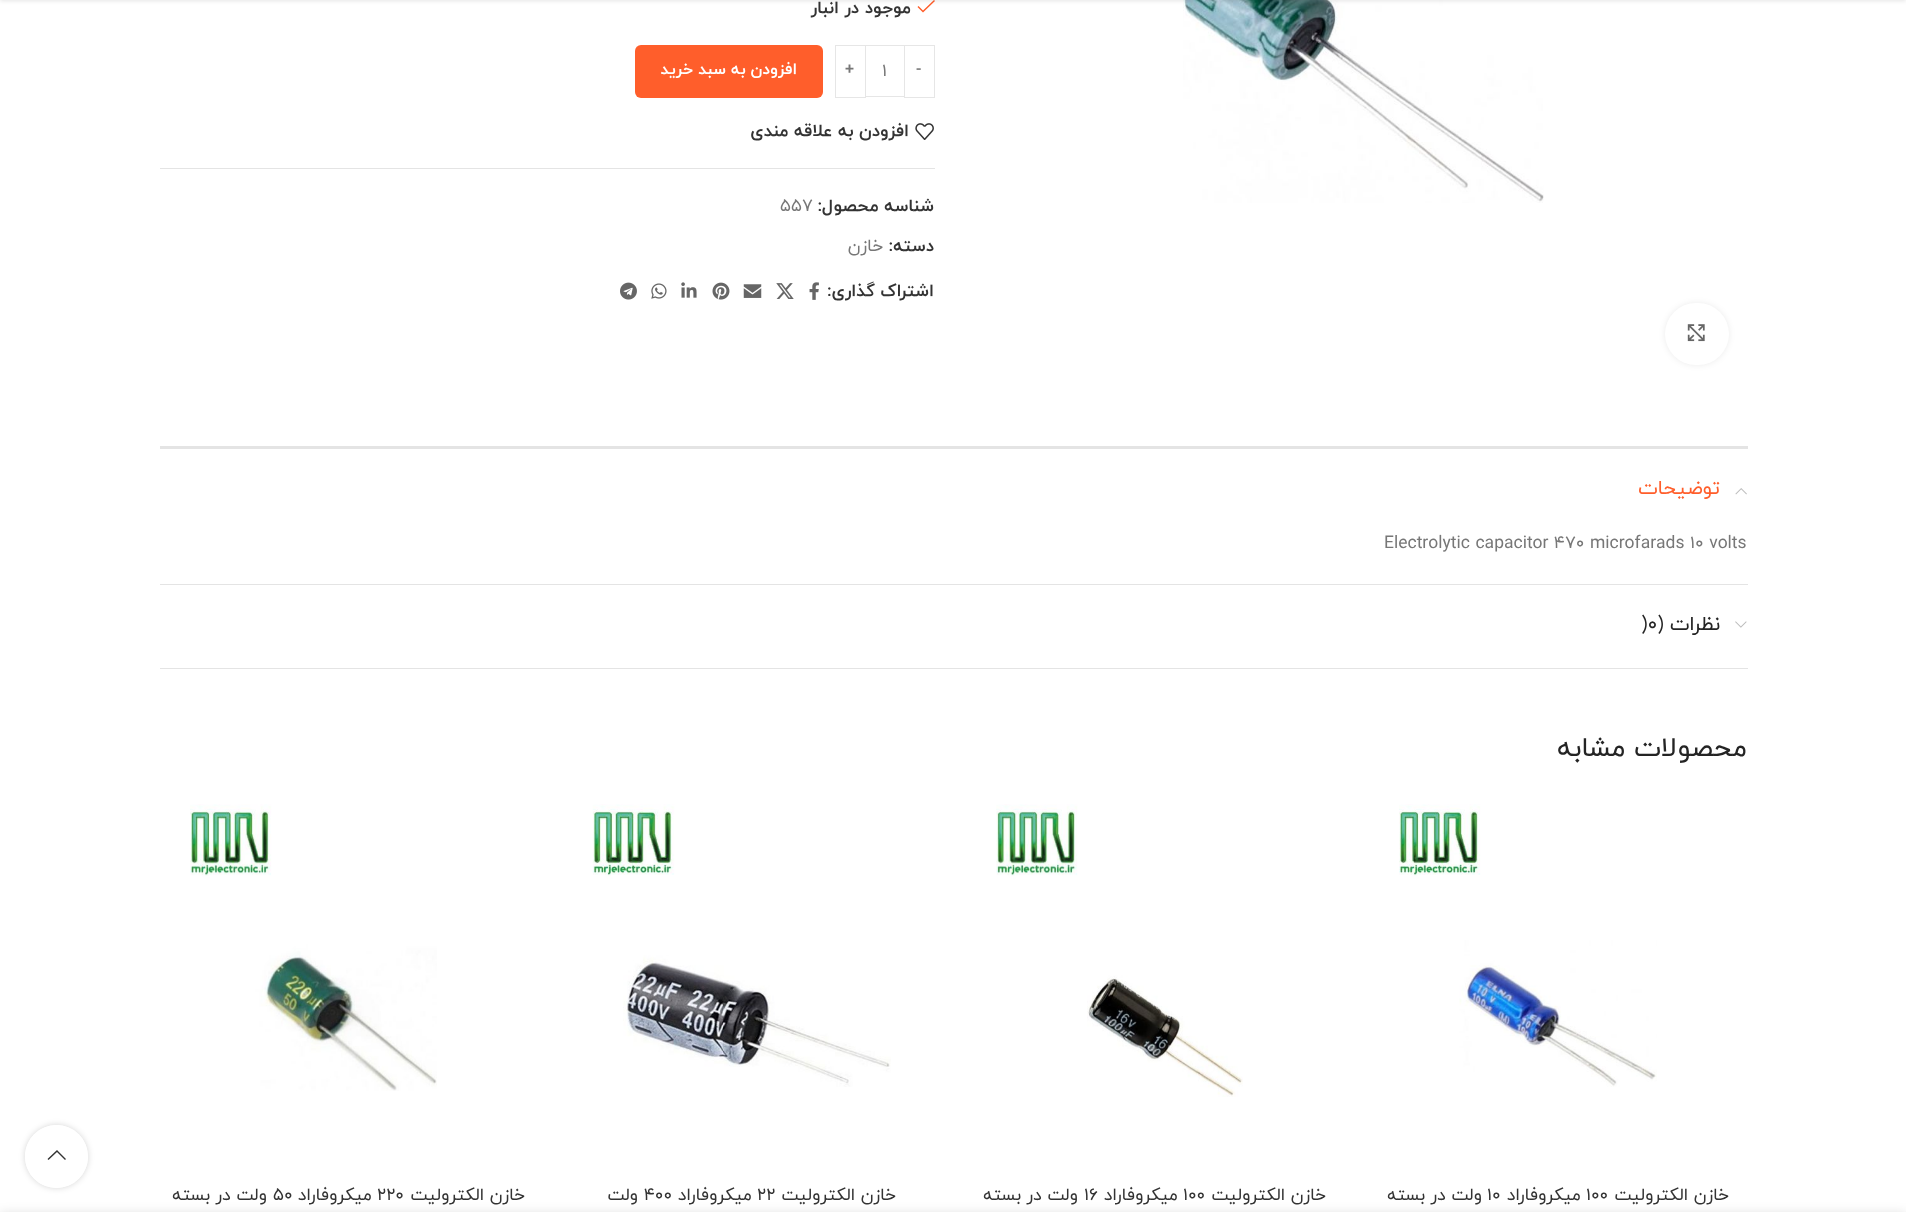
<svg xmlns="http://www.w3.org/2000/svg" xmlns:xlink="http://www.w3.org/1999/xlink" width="1906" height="1212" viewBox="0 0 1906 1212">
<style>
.cls-1{font:bold 17.5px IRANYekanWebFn;direction:rtl;fill:#333333}
.cls-2{font:bold 16.25px IRANYekanWebFn;fill:#777777}
.cls-3{font:17.5px IRANYekanWebFn;fill:#777777}
.cls-4{font:bold 16.25px IRANYekanWebFn;direction:rtl;fill:#ffffff}
.cls-5{font:17.5px IRANYekanWebFn;direction:rtl;fill:#777777}
.cls-6{font:20px IRANYekanWebFn;direction:rtl;fill:#ff5e2b}
.cls-7{font:20px IRANYekanWebFn;direction:rtl;fill:#242424}
.cls-8{font:20px IRANYekanWebFn;fill:#242424}
.cls-9{font:27.5px IRANYekanWebFn;direction:rtl;fill:#242424}
.cls-10{font:17.5px IRANYekanWebFn;direction:rtl;fill:#333333}
.cls-11{font:17.5px IRANYekanWebFn;fill:#333333}
</style>
<defs>
<clipPath id="clip1"><path d="M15 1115H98V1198H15ZM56.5 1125C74 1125 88 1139 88 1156.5C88 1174 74 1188 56.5 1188C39 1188 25 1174 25 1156.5C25 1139 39 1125 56.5 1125Z" clip-rule="evenodd"/></clipPath>
</defs>
<rect width="100%" height="100%" fill="#ffffff"/>
<image xlink:href="image0.png" x="1183" y="0" width="361" height="203"/>
<path fill="#ff5e2b" d="M935 1L934 0L923 10.5L918.5 6L917.5 7L923 12.5Z"/>
<rect fill="#000000" fill-opacity="0.1" filter="blur(2px)" x="0" y="-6" width="1906" height="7"/>
<rect fill="#000000" fill-opacity="0.08" filter="blur(3px)" x="1665" y="303" width="64" height="62" rx="31"/>
<rect fill="#ffffff" x="1665" y="303" width="64" height="62" rx="31"/>
<image xlink:href="image1.png" x="1687" y="324" width="18" height="18"/>
<rect fill="none" stroke="#e6e6e6" x="904.5" y="45.5" width="30" height="52"/>
<rect fill="#e6e6e6" x="866" y="45" width="38" height="1"/>
<rect fill="#e6e6e6" x="866" y="96" width="38" height="1"/>
<rect fill="none" stroke="#e6e6e6" x="835.5" y="45.5" width="30" height="52"/>
<rect fill="#ff5e2b" x="635" y="45" width="188" height="53" rx="6"/>
<image xlink:href="image2.png" x="915" y="123" width="19" height="17"/>
<rect fill="#e4e4e4" x="160" y="168" width="775" height="1"/>
<image xlink:href="image3.png" x="809" y="282" width="10" height="18"/>
<image xlink:href="image4.png" x="776" y="283" width="18" height="16"/>
<image xlink:href="image5.png" x="743" y="284" width="19" height="14"/>
<image xlink:href="image6.png" x="712" y="282" width="18" height="18"/>
<image xlink:href="image7.png" x="681" y="282" width="16" height="16"/>
<image xlink:href="image8.png" x="651" y="283" width="16" height="16"/>
<image xlink:href="image9.png" x="620" y="282" width="17" height="18"/>
<rect fill="#e4e4e4" x="160" y="446" width="1588" height="3"/>
<rect fill="#e4e4e4" x="160" y="584" width="1588" height="1"/>
<image xlink:href="image10.png" x="1735" y="488" width="12" height="7"/>
<rect fill="#e4e4e4" x="160" y="668" width="1588" height="1"/>
<image xlink:href="image11.png" x="1735" y="621" width="12" height="7"/>
<image xlink:href="image12.png" x="1399" y="804" width="258" height="283"/>
<image xlink:href="image13.png" x="996" y="804" width="247" height="293"/>
<image xlink:href="image14.png" x="592" y="804" width="299" height="283"/>
<image xlink:href="image15.png" x="190" y="804" width="247" height="287"/>
<g clip-path="url(#clip1)">
<rect fill="#000000" fill-opacity="0.17" filter="blur(3px)" x="25" y="1125" width="63" height="63" rx="31.5"/>
</g>
<circle fill="#ffffff" fill-opacity="0.9" cx="56.5" cy="1156.5" r="31.5"/>
<path fill="#333333" d="M65 1160L66 1159L57 1150L47.5 1159L48.5 1160L57 1152Z"/>
<rect fill="#000000" fill-opacity="0.12" filter="blur(5.5px)" x="0" y="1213" width="1906" height="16"/>
<text class="cls-1" x="911" y="13">موجود در انبار</text>
<text class="cls-2" x="916" y="74">-</text>
<text class="cls-3" x="882" y="76">1</text>
<text class="cls-2" x="845" y="74">+</text>
<text class="cls-4" x="797" y="74">افزودن به سبد خرید</text>
<text class="cls-1" x="909" y="136">افزودن به علاقه مندی</text>
<text class="cls-1" x="934" y="211">شناسه محصول:</text>
<text class="cls-3" x="780" y="211">557</text>
<text class="cls-1" x="934" y="251">دسته:</text>
<text class="cls-5" x="883" y="251">خازن</text>
<text class="cls-1" x="934" y="296">اشتراک گذاری:</text>
<text class="cls-6" x="1720" y="494">توضیحات</text>
<text class="cls-3" x="1384" y="548">Electrolytic capacitor 470 microfarads 10 volts</text>
<text class="cls-7" x="1720" y="630">نظرات (</text>
<text class="cls-8" x="1641" y="630">)0</text>
<text class="cls-9" x="1747" y="756">محصولات مشابه</text>
<text class="cls-10" x="1729" y="1200">خازن الکترولیت</text>
<text class="cls-11" x="1586" y="1200">100</text>
<text class="cls-10" x="1581" y="1200">میکروفاراد</text>
<text class="cls-11" x="1487" y="1200">10</text>
<text class="cls-10" x="1482" y="1200">ولت در بسته</text>
<text class="cls-10" x="1326" y="1200">خازن الکترولیت</text>
<text class="cls-11" x="1183" y="1200">100</text>
<text class="cls-10" x="1178" y="1200">میکروفاراد</text>
<text class="cls-11" x="1084" y="1200">16</text>
<text class="cls-10" x="1078" y="1200">ولت در بسته</text>
<text class="cls-10" x="896" y="1200">خازن الکترولیت</text>
<text class="cls-11" x="757" y="1200">22</text>
<text class="cls-10" x="752" y="1200">میکروفاراد</text>
<text class="cls-11" x="644" y="1200">400</text>
<text class="cls-10" x="638" y="1200">ولت</text>
<text class="cls-10" x="525" y="1200">خازن الکترولیت</text>
<text class="cls-11" x="377" y="1200">220</text>
<text class="cls-10" x="372" y="1200">میکروفاراد</text>
<text class="cls-11" x="273" y="1200">50</text>
<text class="cls-10" x="267" y="1200">ولت در بسته</text>
</svg>
